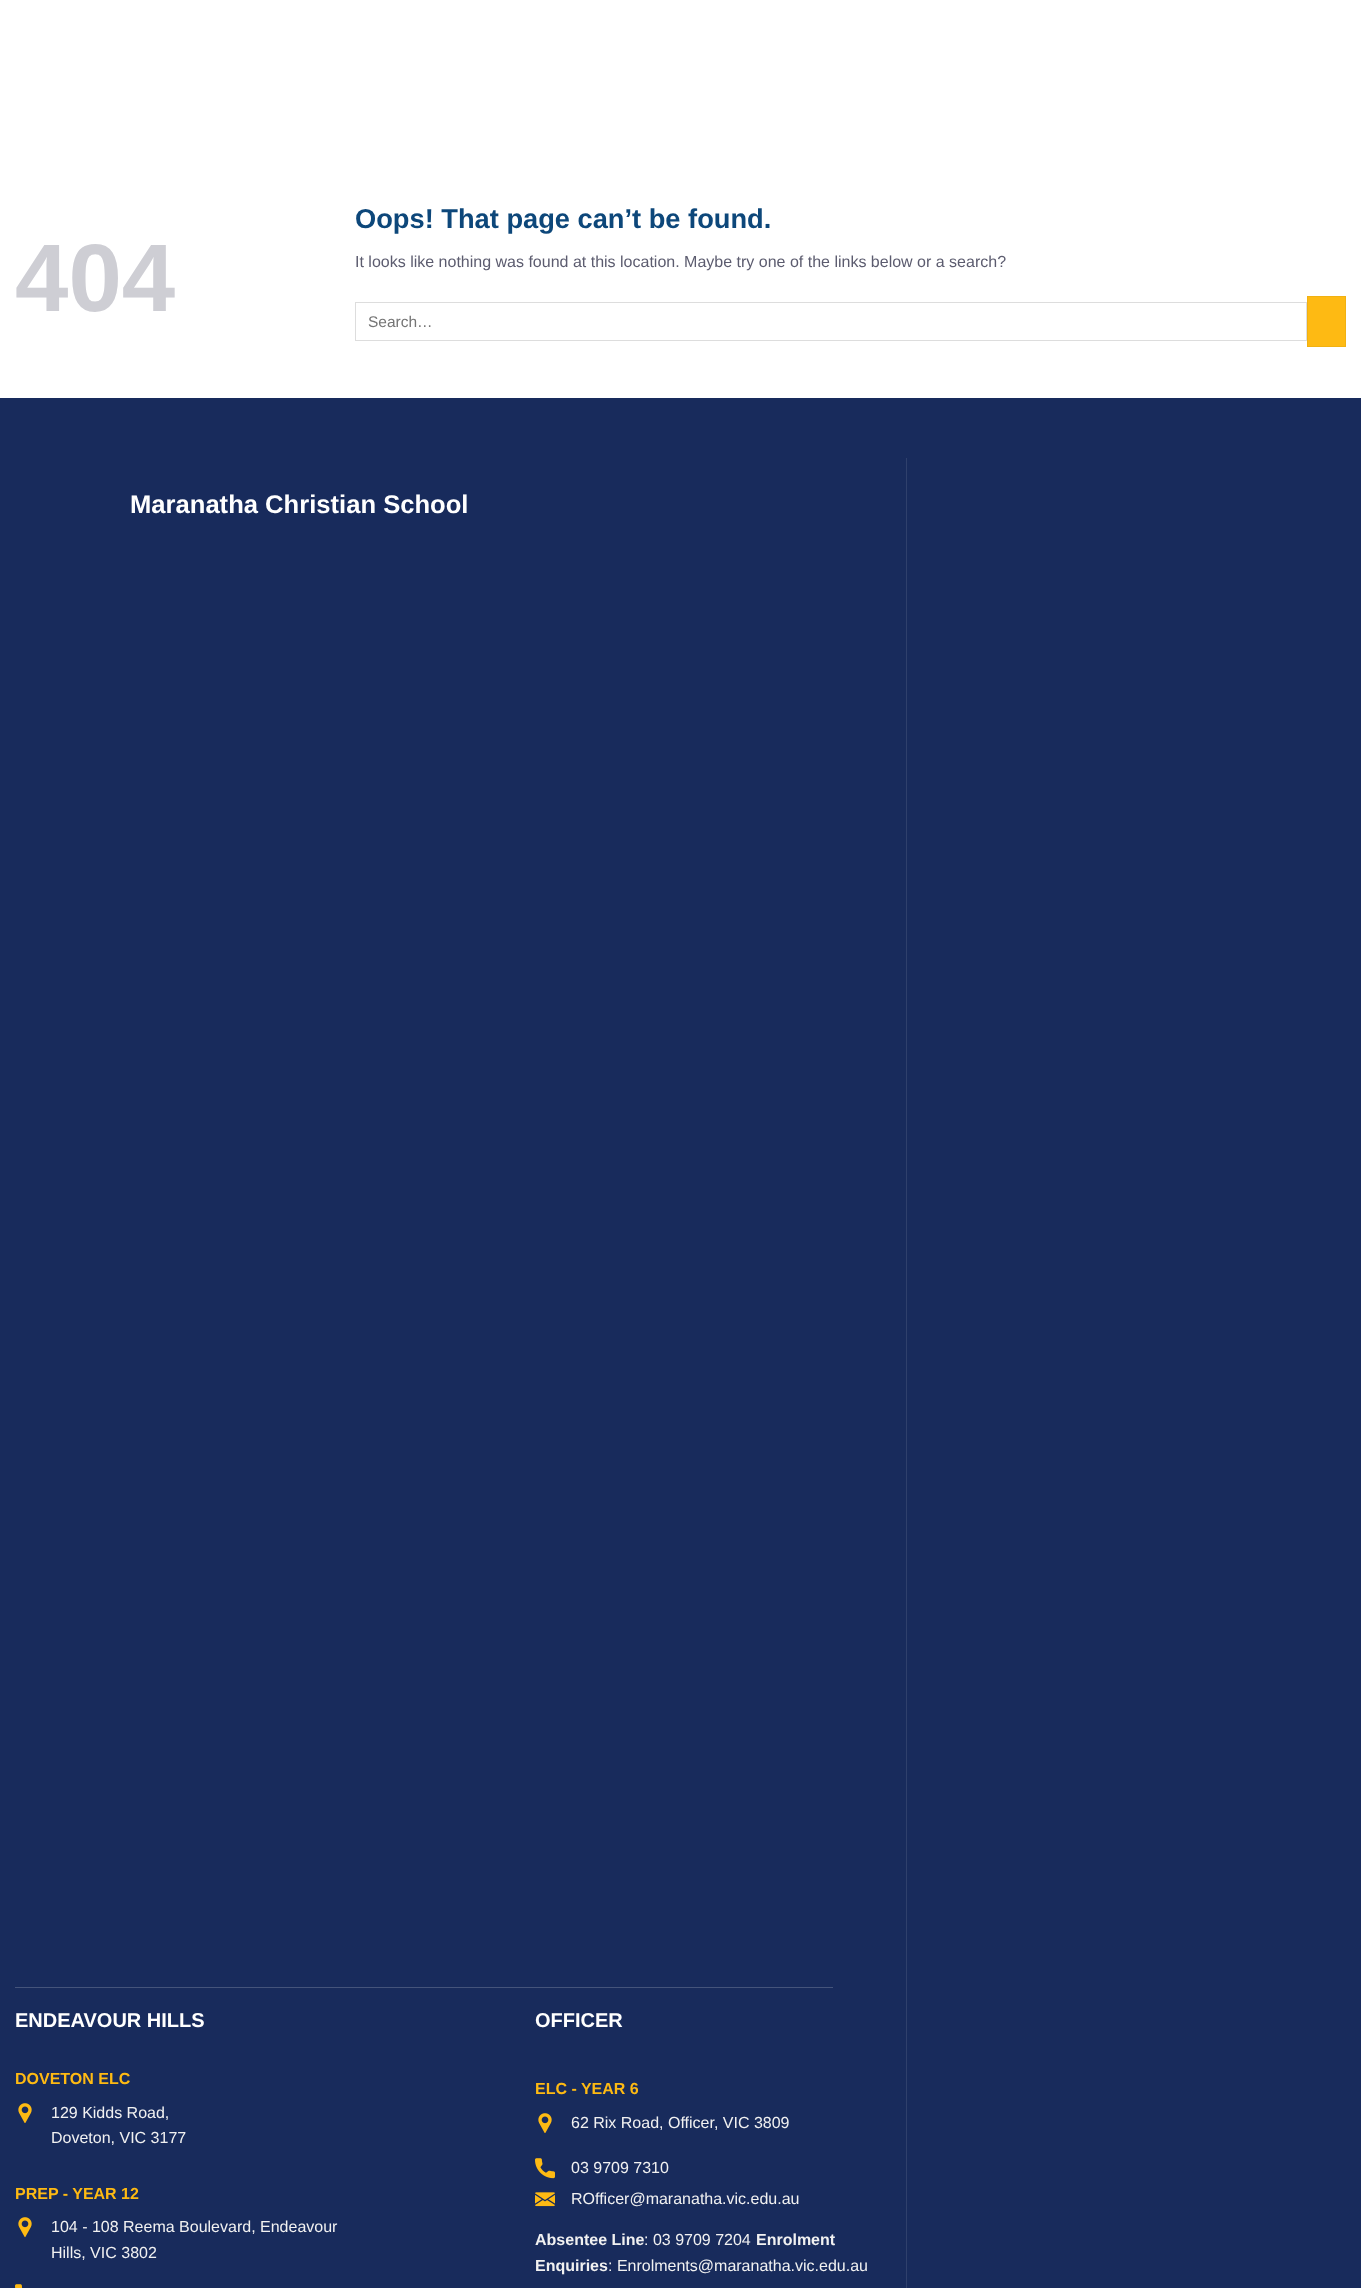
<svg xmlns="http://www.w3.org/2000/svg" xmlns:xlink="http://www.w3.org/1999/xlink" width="1361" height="2288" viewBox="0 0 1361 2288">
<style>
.cls-1{font:bold 96px Liberation Sans;fill:#ceced4}
.cls-2{font:bold 27.25px Liberation Sans;fill:#0d477a}
.cls-3{font:16px Liberation Sans;fill:#5c5c6f}
.cls-4{font:15.5px Liberation Sans;fill:#757575}
.cls-5{font:bold 25.6px Liberation Sans;fill:#ffffff}
.cls-6{font:bold 20px Liberation Sans;fill:#ffffff}
.cls-7{font:bold 16px Liberation Sans;fill:#feba13}
.cls-8{font:16px Liberation Sans;fill:#f1f1f1}
.cls-9{font:bold 16px Liberation Sans;fill:#f1f1f1}
</style>
<rect width="100%" height="100%" fill="#ffffff"/>
<rect fill="none" stroke="#dddddd" x="355.5" y="302.5" width="951" height="38"/>
<rect fill="#feba13" stroke="#f1b112" x="1307.5" y="296.5" width="38" height="50"/>
<rect fill="#182b5c" x="0" y="398" width="1361" height="1890"/>
<rect fill="#2f406c" x="906" y="458" width="1" height="1830"/>
<rect fill="#44547b" x="15" y="1987" width="818" height="1"/>
<image xlink:href="image0.png" x="18" y="2103" width="14" height="20"/>
<image xlink:href="image1.png" x="18" y="2217" width="14" height="21"/>
<image xlink:href="image2.png" x="15" y="2284" width="8" height="4"/>
<image xlink:href="image0.png" x="538" y="2113" width="14" height="20"/>
<image xlink:href="image3.png" x="535" y="2158" width="20" height="21"/>
<image xlink:href="image4.png" x="535" y="2192" width="20" height="15"/>
<text class="cls-1" x="15" y="311">404</text>
<text class="cls-2" x="355" y="228">Oops! That page can’t be found.</text>
<text class="cls-3" x="355" y="267">It looks like nothing was found at this location. Maybe try one of the links below or a search?</text>
<text class="cls-4" x="368" y="327">Search…</text>
<text class="cls-5" x="130" y="513">Maranatha Christian School</text>
<text class="cls-6" x="15" y="2027">ENDEAVOUR HILLS</text>
<text class="cls-7" x="15" y="2084">DOVETON ELC</text>
<text class="cls-8"><tspan x="51" y="2118">129 Kidds Road,</tspan><tspan x="51" y="2143">Doveton, VIC 3177</tspan></text>
<text class="cls-7" x="15" y="2199">PREP - YEAR 12</text>
<text class="cls-8"><tspan x="51" y="2232">104 - 108 Reema Boulevard, Endeavour</tspan><tspan x="51" y="2258">Hills, VIC 3802</tspan></text>
<text class="cls-6" x="535" y="2027">OFFICER</text>
<text class="cls-7" x="535" y="2094">ELC - YEAR 6</text>
<text class="cls-8" x="571" y="2128">62 Rix Road, Officer, VIC 3809</text>
<text class="cls-8"><tspan x="571" y="2173">03 9709 7310</tspan><tspan x="571" y="2204">ROfficer@maranatha.vic.edu.au</tspan></text>
<text class="cls-9" x="535" y="2245">Absentee Line</text>
<text class="cls-8" x="644" y="2245">: 03 9709 7204</text>
<text class="cls-9" x="756" y="2245">Enrolment</text>
<text class="cls-9" x="535" y="2271">Enquiries</text>
<text class="cls-8" x="608" y="2271">: Enrolments@maranatha.vic.edu.au</text>
</svg>
